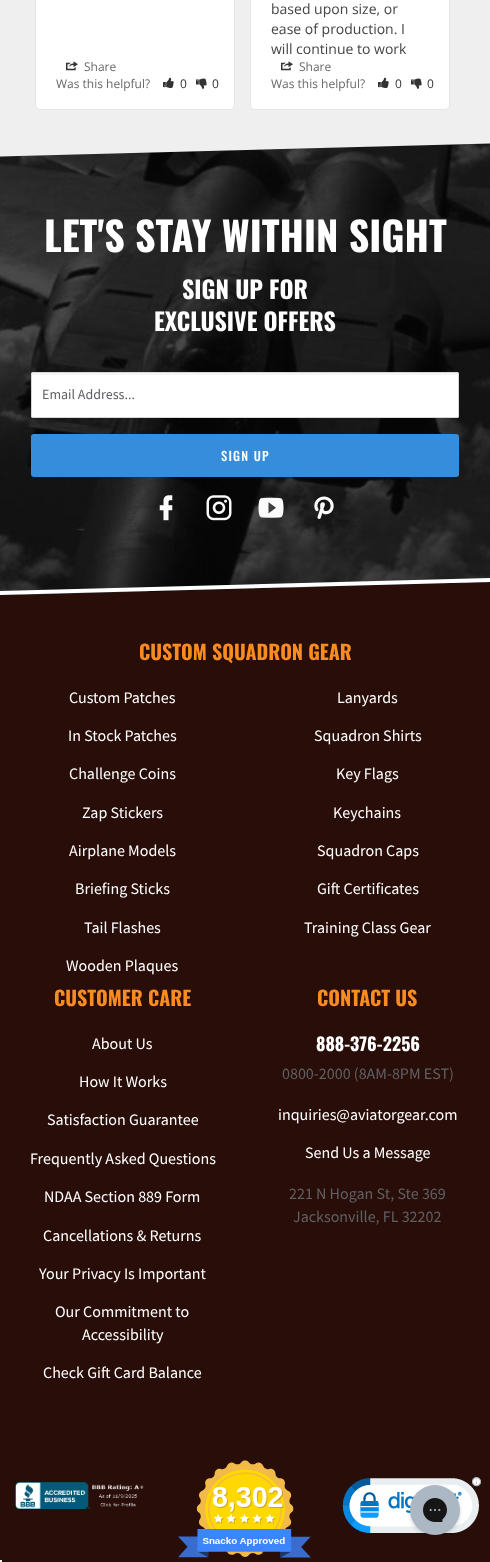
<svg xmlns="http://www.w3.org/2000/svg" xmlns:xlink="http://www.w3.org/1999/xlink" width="490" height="1562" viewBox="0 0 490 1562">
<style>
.cls-1{font:12px Open Sans;fill:#696969}
.cls-2{font:12px Open Sans;fill:#333333}
.cls-3{font:14px Open Sans;fill:#444444}
.cls-4{font:bold 40px Oswald;fill:#ffffff}
.cls-5{font:bold 24px Oswald;fill:#ffffff}
.cls-6{font:14px Source Sans Pro;fill:#5f6164}
.cls-7{font:500 12.5px Oswald;letter-spacing:1.25px;fill:#ffffff}
.cls-8{font:bold 20px Oswald;fill:#f98b21}
.cls-9{font:16px Source Sans Pro;fill:#ffffff}
.cls-10{font:bold 18px Oswald;fill:#ffffff}
.cls-11{font:16px Source Sans Pro;fill:#5f6164}
</style>
<defs>
<clipPath id="clip1"><rect x="271" y="0" width="158" height="54"/></clipPath>
</defs>
<rect width="100%" height="100%" fill="#280d08"/>
<rect fill="#efeff0" x="0" y="0" width="490" height="157"/>
<rect fill="#ffffff" stroke="#e5e5e5" x="35.5" y="-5.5" width="199" height="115" rx="4.5"/>
<image xlink:href="image0.png" x="66" y="61" width="12" height="10"/>
<image xlink:href="image1.png" x="163" y="77" width="11" height="11"/>
<image xlink:href="image2.png" x="196" y="78" width="11" height="11"/>
<rect fill="#ffffff" stroke="#e5e5e5" x="250.5" y="-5.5" width="199" height="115" rx="4.5"/>
<image xlink:href="image0.png" x="281" y="61" width="12" height="10"/>
<image xlink:href="image1.png" x="378" y="77" width="11" height="11"/>
<image xlink:href="image2.png" x="411" y="78" width="11" height="11"/>
<image xlink:href="image3.png" x="0" y="143" width="490" height="453"/>
<path fill="#ffffff" d="M0 591L490 578V582L0 595Z"/>
<rect fill="#ffffff" x="31" y="372" width="428" height="46" rx="2"/>
<path fill="#f5f5f5" d="M33 375H457H458V376C458 375 458 373 457 373H32V376C32 375 32 375 33 375Z"/>
<rect fill="none" stroke="#d6d7d8" x="31.5" y="372.5" width="427" height="45" rx="1.5"/>
<rect fill="#358ddc" x="31" y="434" width="428" height="43" rx="3"/>
<image xlink:href="image4.png" x="159" y="495" width="14" height="26"/>
<image xlink:href="image5.png" x="206" y="495" width="26" height="26"/>
<image xlink:href="image6.png" x="258" y="497" width="26" height="21"/>
<image xlink:href="image7.png" x="314" y="496" width="20" height="23"/>
<image xlink:href="image8.png" x="15" y="1482" width="129" height="27"/>
<image xlink:href="image9.png" x="178" y="1460" width="133" height="98"/>
<image xlink:href="image10.png" x="342" y="1477" width="139" height="56"/>
<image xlink:href="image11.png" x="408" y="1485" width="54" height="50"/>
<rect fill="#f5f5f5" x="0" y="1560" width="2" height="2"/>
<text class="cls-1" x="84" y="71">Share</text>
<text class="cls-1" x="56" y="88">Was this helpful?</text>
<text class="cls-2" x="180" y="88">0</text>
<text class="cls-2" x="212" y="88">0</text>
<text class="cls-3"><tspan x="271" y="14">based upon size, or</tspan><tspan x="271" y="34">ease of production. I</tspan></text>
<g clip-path="url(#clip1)">
<text class="cls-3" x="271" y="54">will continue to work</text>
</g>
<text class="cls-1" x="299" y="71">Share</text>
<text class="cls-1" x="271" y="88">Was this helpful?</text>
<text class="cls-2" x="395" y="88">0</text>
<text class="cls-2" x="427" y="88">0</text>
<text class="cls-4" x="44" y="252">LET'S STAY WITHIN SIGHT</text>
<text class="cls-5" x="182" y="299">SIGN UP FOR</text>
<text class="cls-5" x="154" y="331">EXCLUSIVE OFFERS</text>
<text class="cls-6" x="42" y="399">Email Address...</text>
<text class="cls-7" x="221" y="461">SIGN UP</text>
<text class="cls-8" x="139" y="660">CUSTOM SQUADRON GEAR</text>
<text class="cls-9" x="69" y="703">Custom Patches</text>
<text class="cls-9" x="68" y="741">In Stock Patches</text>
<text class="cls-9" x="69" y="779">Challenge Coins</text>
<text class="cls-9" x="82" y="818">Zap Stickers</text>
<text class="cls-9" x="69" y="856">Airplane Models</text>
<text class="cls-9" x="75" y="894">Briefing Sticks</text>
<text class="cls-9" x="84" y="933">Tail Flashes</text>
<text class="cls-9" x="66" y="971">Wooden Plaques</text>
<text class="cls-9" x="337" y="703">Lanyards</text>
<text class="cls-9" x="314" y="741">Squadron Shirts</text>
<text class="cls-9" x="336" y="779">Key Flags</text>
<text class="cls-9" x="333" y="818">Keychains</text>
<text class="cls-9" x="317" y="856">Squadron Caps</text>
<text class="cls-9" x="317" y="894">Gift Certificates</text>
<text class="cls-9" x="304" y="933">Training Class Gear</text>
<text class="cls-8" x="54" y="1006">CUSTOMER CARE</text>
<text class="cls-9" x="92" y="1049">About Us</text>
<text class="cls-9" x="79" y="1087">How It Works</text>
<text class="cls-9" x="47" y="1125">Satisfaction Guarantee</text>
<text class="cls-9" x="30" y="1164">Frequently Asked Questions</text>
<text class="cls-9" x="44" y="1202">NDAA Section 889 Form</text>
<text class="cls-9" x="43" y="1241">Cancellations &amp; Returns</text>
<text class="cls-9" x="39" y="1279">Your Privacy Is Important</text>
<text class="cls-9" x="55" y="1317">Our Commitment to</text>
<text class="cls-9" x="82" y="1340">Accessibility</text>
<text class="cls-9" x="43" y="1378">Check Gift Card Balance</text>
<text class="cls-8" x="317" y="1006">CONTACT US</text>
<text class="cls-10" x="316" y="1051">888-376-2256</text>
<text class="cls-11" x="282" y="1079">0800-2000 (8AM-8PM EST)</text>
<text class="cls-9" x="278" y="1120">inquiries@aviatorgear.com</text>
<text class="cls-9" x="305" y="1158">Send Us a Message</text>
<text class="cls-11" x="289" y="1199">221 N Hogan St, Ste 369</text>
<text class="cls-11" x="293" y="1222">Jacksonville, FL 32202</text>
</svg>
